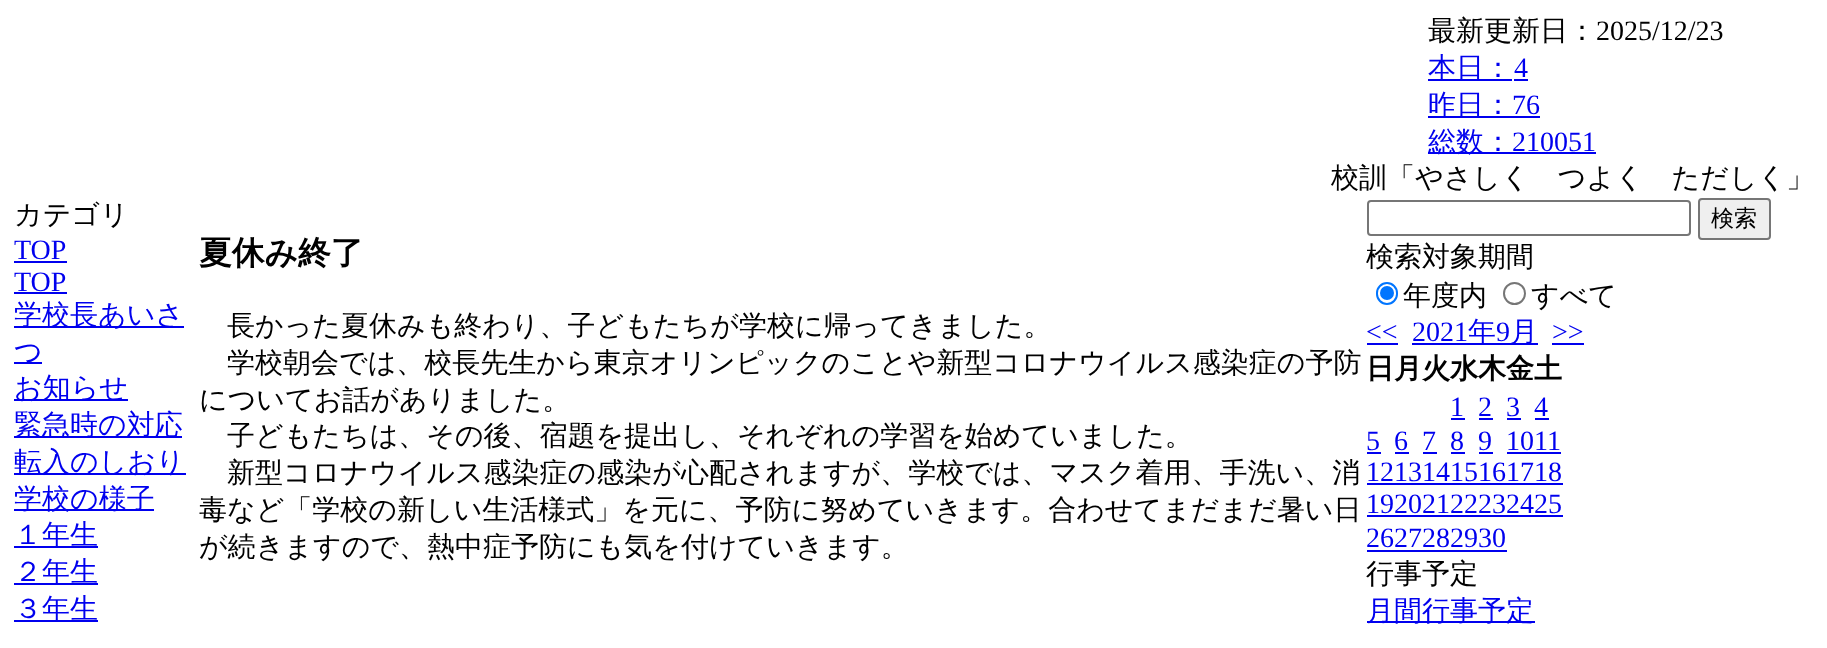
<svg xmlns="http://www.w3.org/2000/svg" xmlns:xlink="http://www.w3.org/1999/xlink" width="1827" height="648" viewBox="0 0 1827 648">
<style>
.cls-1{font:500 28px WenQuanYi Zen Hei;fill:#000000}
.cls-2{font:28px Liberation Serif;fill:#000000}
.cls-3{font:500 28px WenQuanYi Zen Hei;fill:#0000ee}
.cls-4{font:28px Liberation Serif;fill:#0000ee}
.cls-5{font:bold 32.75px WenQuanYi Zen Hei;fill:#000000}
.cls-6{font:500 23px WenQuanYi Zen Hei;fill:#000000}
.cls-7{font:bold 28px WenQuanYi Zen Hei;fill:#000000}
</style>
<rect width="100%" height="100%" fill="#ffffff"/>
<rect fill="#0000ee" x="1428" y="79" width="84" height="2"/>
<rect fill="#0000ee" x="1514" y="79" width="14" height="2"/>
<rect fill="#0000ee" x="1428" y="116" width="112" height="2"/>
<rect fill="#0000ee" x="1428" y="152" width="168" height="2"/>
<rect fill="#0000ee" x="14" y="261" width="53" height="2"/>
<rect fill="#0000ee" x="14" y="292" width="53" height="2"/>
<rect fill="#0000ee" x="14" y="326" width="170" height="2"/>
<rect fill="#0000ee" x="14" y="362" width="28" height="2"/>
<rect fill="#0000ee" x="14" y="399" width="114" height="2"/>
<rect fill="#0000ee" x="14" y="436" width="168" height="2"/>
<rect fill="#0000ee" x="14" y="473" width="172" height="2"/>
<rect fill="#0000ee" x="14" y="509" width="140" height="2"/>
<rect fill="#0000ee" x="14" y="546" width="84" height="2"/>
<rect fill="#0000ee" x="14" y="583" width="84" height="2"/>
<rect fill="#0000ee" x="14" y="620" width="84" height="2"/>
<rect fill="none" stroke="#767676" stroke-width="2" x="1368" y="201" width="322" height="34" rx="3"/>
<rect fill="#efefef" stroke="#767676" stroke-width="2" x="1699" y="199" width="71" height="40" rx="3"/>
<rect fill="none" stroke="#0075ff" stroke-width="2" x="1377" y="283" width="20" height="21" rx="10"/>
<circle fill="#0075ff" cx="1387" cy="293" r="7"/>
<circle fill="none" stroke="#767676" stroke-width="2" cx="1514.5" cy="293.5" r="10.5"/>
<rect fill="#0000ee" x="1367" y="343" width="31" height="2"/>
<rect fill="#0000ee" x="1412" y="343" width="126" height="2"/>
<rect fill="#0000ee" x="1552" y="343" width="32" height="2"/>
<rect fill="#0000ee" x="1451" y="418" width="14" height="2"/>
<rect fill="#0000ee" x="1479" y="418" width="14" height="2"/>
<rect fill="#0000ee" x="1507" y="418" width="14" height="2"/>
<rect fill="#0000ee" x="1535" y="418" width="14" height="2"/>
<rect fill="#0000ee" x="1367" y="452" width="14" height="2"/>
<rect fill="#0000ee" x="1395" y="452" width="14" height="2"/>
<rect fill="#0000ee" x="1423" y="452" width="14" height="2"/>
<rect fill="#0000ee" x="1451" y="452" width="14" height="2"/>
<rect fill="#0000ee" x="1479" y="452" width="14" height="2"/>
<rect fill="#0000ee" x="1507" y="452" width="54" height="2"/>
<rect fill="#0000ee" x="1367" y="483" width="196" height="2"/>
<rect fill="#0000ee" x="1367" y="515" width="196" height="2"/>
<rect fill="#0000ee" x="1367" y="550" width="140" height="2"/>
<rect fill="#0000ee" x="1367" y="621" width="168" height="2"/>
<text class="cls-1" x="1428" y="40">最新更新日：</text>
<text class="cls-2" x="1596" y="40">2025/12/23</text>
<text class="cls-3" x="1428" y="77">本日：</text>
<text class="cls-4" x="1514" y="77">4</text>
<text class="cls-3" x="1428" y="114">昨日：</text>
<text class="cls-4" x="1512" y="114">76</text>
<text class="cls-3" x="1428" y="151">総数：</text>
<text class="cls-4" x="1512" y="151">210051</text>
<text class="cls-1" x="1331" y="187">校訓「やさしく　つよく　ただしく」</text>
<text class="cls-1" x="14" y="224">カテゴリ</text>
<text class="cls-4"><tspan x="14" y="259">TOP</tspan><tspan x="14" y="291">TOP</tspan></text>
<text class="cls-3"><tspan x="14" y="324">学校長あいさ</tspan><tspan x="14" y="361">つ</tspan><tspan x="14" y="397">お知らせ</tspan><tspan x="14" y="434">緊急時の対応</tspan><tspan x="14" y="471">転入のしおり</tspan><tspan x="14" y="508">学校の様子</tspan><tspan x="14" y="544">１年生</tspan><tspan x="14" y="581">２年生</tspan><tspan x="14" y="618">３年生</tspan></text>
<text class="cls-5" x="199" y="264">夏休み終了</text>
<text class="cls-1"><tspan x="227" y="335">長かった夏休みも終わり、子どもたちが学校に帰ってきました。</tspan><tspan x="227" y="372">学校朝会では、校長先生から東京オリンピックのことや新型コロナウイルス感染症の予防</tspan></text>
<text class="cls-1" x="199" y="409">についてお話がありました。</text>
<text class="cls-1"><tspan x="227" y="445">子どもたちは、その後、宿題を提出し、それぞれの学習を始めていました。</tspan><tspan x="227" y="482">新型コロナウイルス感染症の感染が心配されますが、学校では、マスク着用、手洗い、消</tspan></text>
<text class="cls-1"><tspan x="199" y="519">毒など「学校の新しい生活様式」を元に、予防に努めていきます。合わせてまだまだ暑い日</tspan><tspan x="199" y="556">が続きますので、熱中症予防にも気を付けていきます。</tspan></text>
<text class="cls-6" x="1711" y="226">検索</text>
<text class="cls-1" x="1366" y="266">検索対象期間</text>
<text class="cls-1" x="1403" y="305">年度内</text>
<text class="cls-1" x="1531" y="305">すべて</text>
<text class="cls-4" x="1366" y="341">&lt;&lt;</text>
<text class="cls-4" x="1412" y="341">2021</text>
<text class="cls-3" x="1468" y="341">年</text>
<text class="cls-4" x="1496" y="341">9</text>
<text class="cls-3" x="1510" y="341">月</text>
<text class="cls-4" x="1552" y="341">&gt;&gt;</text>
<text class="cls-7" x="1366" y="378">日月火水木金土</text>
<text class="cls-4" x="1450" y="416">1</text>
<text class="cls-4" x="1478" y="416">2</text>
<text class="cls-4" x="1506" y="416">3</text>
<text class="cls-4" x="1534" y="416">4</text>
<text class="cls-4" x="1366" y="450">5</text>
<text class="cls-4" x="1394" y="450">6</text>
<text class="cls-4" x="1422" y="450">7</text>
<text class="cls-4" x="1450" y="450">8</text>
<text class="cls-4" x="1478" y="450">9</text>
<text class="cls-4" x="1506" y="450">1011</text>
<text class="cls-4"><tspan x="1366" y="481">12131415161718</tspan><tspan x="1366" y="513">19202122232425</tspan><tspan x="1366" y="547">2627282930</tspan></text>
<text class="cls-1" x="1366" y="583">行事予定</text>
<text class="cls-3" x="1366" y="620">月間行事予定</text>
</svg>
